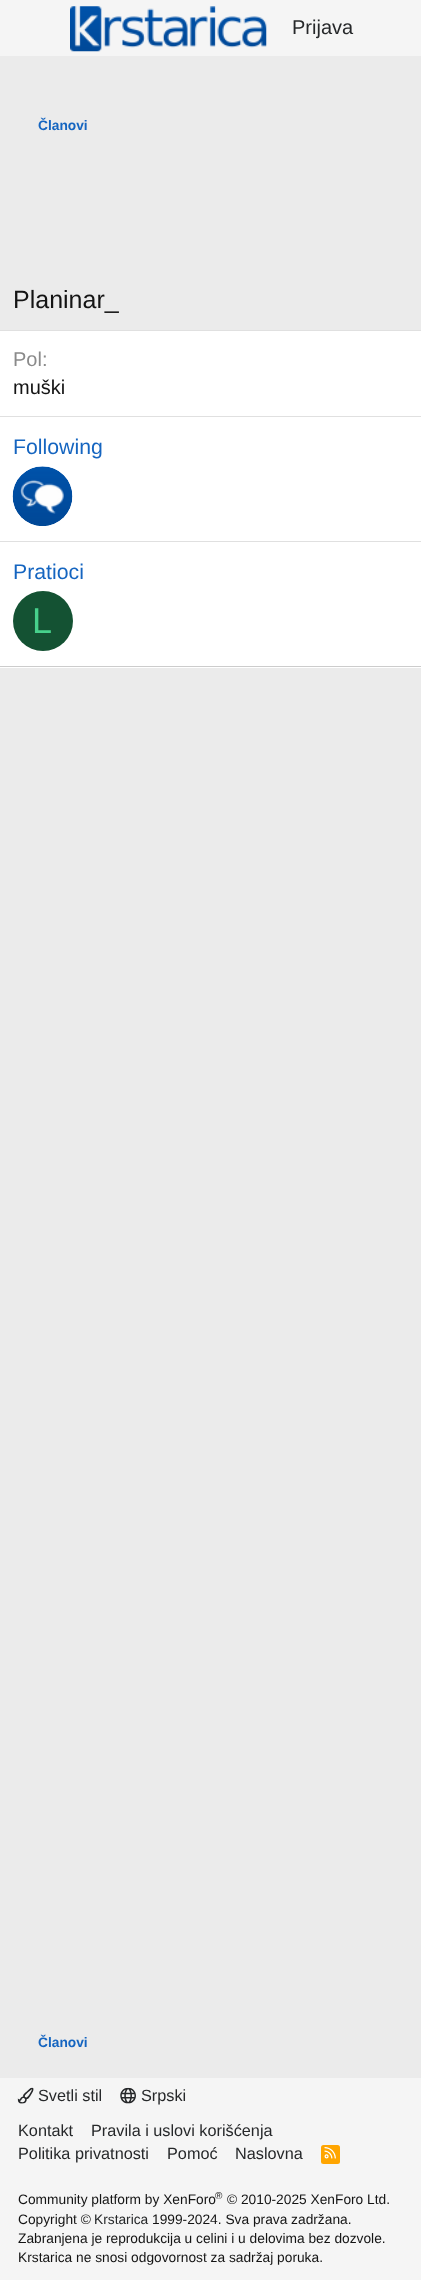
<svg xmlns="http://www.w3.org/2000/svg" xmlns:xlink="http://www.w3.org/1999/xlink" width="421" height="2280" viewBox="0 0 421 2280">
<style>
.cls-1{font:20px Liberation Sans;fill:#26282a}
.cls-2{font:bold 13.75px Liberation Sans;fill:#1565c0}
.cls-3{font:25px Liberation Sans;fill:#141414}
.cls-4{font:20px Liberation Sans;fill:#8a8a8a}
.cls-5{font:20px Liberation Sans;fill:#141414}
.cls-6{font:21.25px Liberation Sans;fill:#1565c0}
.cls-7{font:36px Liberation Sans;fill:#47d18c}
.cls-8{font:16.25px Liberation Sans;fill:#26282a}
.cls-9{font:13.75px Liberation Sans;fill:#141414}
.cls-10{font:10px Liberation Sans;fill:#141414}
.cls-11{font:13.75px Liberation Sans;fill:#26282a}
</style>
<rect width="100%" height="100%" fill="#ebebeb"/>
<rect fill="#f5f5f5" x="0" y="0" width="421" height="56"/>
<image xlink:href="image0.png" x="70" y="6" width="197" height="46"/>
<rect fill="#ffffff" x="0" y="331" width="421" height="337"/>
<rect fill="#e0e0e0" x="0" y="330" width="421" height="1"/>
<rect fill="#cccccc" x="0" y="666" width="421" height="1"/>
<rect fill="#e0e0e0" x="0" y="416" width="421" height="1"/>
<image xlink:href="image1.png" x="12" y="466" width="61" height="60"/>
<rect fill="#e0e0e0" x="0" y="541" width="421" height="1"/>
<circle fill="#145233" cx="43" cy="621" r="30"/>
<rect fill="#f5f5f5" x="0" y="2078" width="421" height="202"/>
<image xlink:href="image2.png" x="17" y="2087" width="17" height="17"/>
<image xlink:href="image3.png" x="120" y="2087" width="16" height="17"/>
<rect fill="#ffa500" x="321" y="2145" width="19" height="19" rx="2.5"/>
<image xlink:href="image4.png" x="324" y="2147" width="12" height="12"/>
<text class="cls-1" x="292" y="34">Prijava</text>
<text class="cls-2" x="38" y="130">Članovi</text>
<text class="cls-3" x="13" y="308">Planinar_</text>
<text class="cls-4" x="13" y="366">Pol:</text>
<text class="cls-5" x="13" y="394">muški</text>
<text class="cls-6" x="13" y="454">Following</text>
<text class="cls-6" x="13" y="579">Pratioci</text>
<text class="cls-7" x="32" y="633">L</text>
<text class="cls-2" x="38" y="2047">Članovi</text>
<text class="cls-8" x="38" y="2101">Svetli stil</text>
<text class="cls-8" x="141" y="2101">Srpski</text>
<text class="cls-8" x="18" y="2136">Kontakt</text>
<text class="cls-8" x="91" y="2136">Pravila i uslovi korišćenja</text>
<text class="cls-8" x="18" y="2159">Politika privatnosti</text>
<text class="cls-8" x="167" y="2159">Pomoć</text>
<text class="cls-8" x="235" y="2159">Naslovna</text>
<text class="cls-9" x="18" y="2204">Community platform by XenForo</text>
<text class="cls-10" x="215" y="2199">®</text>
<text class="cls-9" x="227" y="2204">© 2010-2025 XenForo Ltd.</text>
<text class="cls-9" x="18" y="2224">Copyright ©</text>
<text class="cls-11" x="94" y="2224">Krstarica</text>
<text class="cls-9" x="152" y="2224">1999-2024. Sva prava zadržana.</text>
<text class="cls-9"><tspan x="18" y="2243">Zabranjena je reprodukcija u celini i u delovima bez dozvole.</tspan><tspan x="18" y="2262">Krstarica ne snosi odgovornost za sadržaj poruka.</tspan></text>
</svg>
